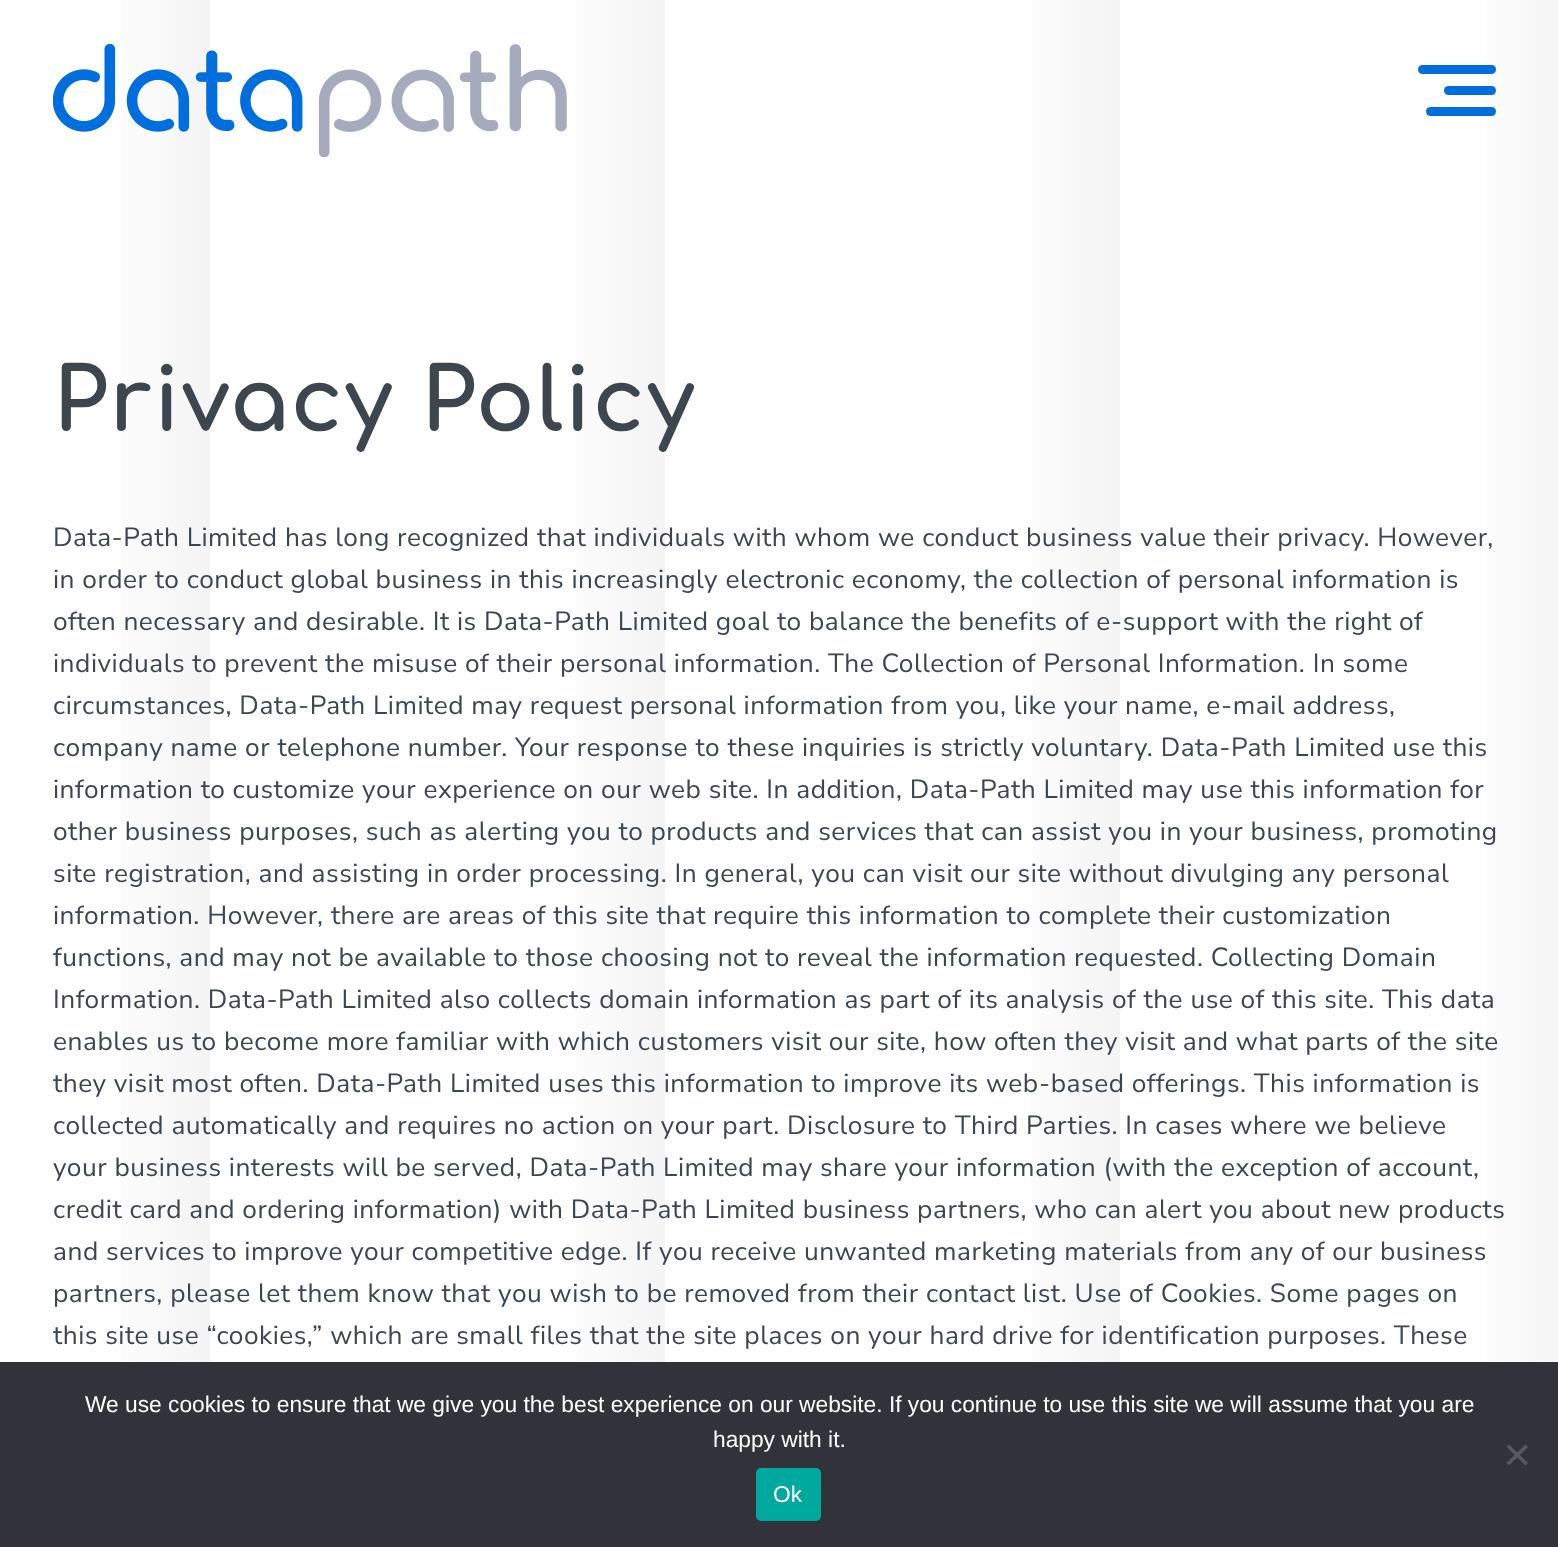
<svg xmlns="http://www.w3.org/2000/svg" xmlns:xlink="http://www.w3.org/1999/xlink" width="1558" height="1547" viewBox="0 0 1558 1547">
<style>
.cls-1{font:bold 87.5px Comfortaa;letter-spacing:1.75px;fill:#3d454f}
.cls-2{font:200 26.25px Nunito Sans;letter-spacing:0.53px;fill:#3d454f}
.cls-3{font:22.75px Liberation Sans;fill:#ffffff}
</style>
<defs>
<linearGradient id="g1" gradientUnits="userSpaceOnUse" x1="-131" y1="1310" x2="552" y2="1310"><stop offset="0" stop-color="#ffffff"/><stop offset="0" stop-color="#f4f4f4"/><stop offset="0" stop-color="#f4f4f4"/><stop offset="0" stop-color="#ffffff"/><stop offset="0.33" stop-color="#ffffff"/><stop offset="0.33" stop-color="#f4f4f4"/><stop offset="0.33" stop-color="#f4f4f4"/><stop offset="0.33" stop-color="#ffffff"/><stop offset="0.5" stop-color="#f4f4f4"/><stop offset="0.5" stop-color="#f4f4f4"/><stop offset="0.5" stop-color="#ffffff"/><stop offset="0.83" stop-color="#ffffff"/><stop offset="0.83" stop-color="#f4f4f4"/><stop offset="0.83" stop-color="#f4f4f4"/><stop offset="0.83" stop-color="#ffffff"/><stop offset="1" stop-color="#ffffff"/></linearGradient>
<linearGradient id="g2" gradientUnits="userSpaceOnUse" x1="324" y1="1310" x2="1007" y2="1310"><stop offset="0" stop-color="#ffffff"/><stop offset="0" stop-color="#f4f4f4"/><stop offset="0" stop-color="#f4f4f4"/><stop offset="0" stop-color="#ffffff"/><stop offset="0.33" stop-color="#ffffff"/><stop offset="0.33" stop-color="#f4f4f4"/><stop offset="0.33" stop-color="#f4f4f4"/><stop offset="0.33" stop-color="#ffffff"/><stop offset="0.5" stop-color="#f4f4f4"/><stop offset="0.5" stop-color="#f4f4f4"/><stop offset="0.5" stop-color="#ffffff"/><stop offset="0.83" stop-color="#ffffff"/><stop offset="0.83" stop-color="#f4f4f4"/><stop offset="0.83" stop-color="#f4f4f4"/><stop offset="0.83" stop-color="#ffffff"/><stop offset="1" stop-color="#ffffff"/></linearGradient>
<linearGradient id="g3" gradientUnits="userSpaceOnUse" x1="779" y1="1310" x2="1462" y2="1310"><stop offset="0" stop-color="#ffffff"/><stop offset="0" stop-color="#f4f4f4"/><stop offset="0" stop-color="#f4f4f4"/><stop offset="0" stop-color="#ffffff"/><stop offset="0.33" stop-color="#ffffff"/><stop offset="0.33" stop-color="#f4f4f4"/><stop offset="0.33" stop-color="#f4f4f4"/><stop offset="0.33" stop-color="#ffffff"/><stop offset="0.5" stop-color="#f4f4f4"/><stop offset="0.5" stop-color="#f4f4f4"/><stop offset="0.5" stop-color="#ffffff"/><stop offset="0.83" stop-color="#ffffff"/><stop offset="0.83" stop-color="#f4f4f4"/><stop offset="0.83" stop-color="#f4f4f4"/><stop offset="0.83" stop-color="#ffffff"/><stop offset="1" stop-color="#ffffff"/></linearGradient>
<linearGradient id="g4" gradientUnits="userSpaceOnUse" x1="1234" y1="1310" x2="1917" y2="1310"><stop offset="0" stop-color="#ffffff"/><stop offset="0" stop-color="#f4f4f4"/><stop offset="0" stop-color="#f4f4f4"/><stop offset="0" stop-color="#ffffff"/><stop offset="0.33" stop-color="#ffffff"/><stop offset="0.33" stop-color="#f4f4f4"/><stop offset="0.33" stop-color="#f4f4f4"/><stop offset="0.33" stop-color="#ffffff"/><stop offset="0.5" stop-color="#f4f4f4"/><stop offset="0.5" stop-color="#f4f4f4"/><stop offset="0.5" stop-color="#ffffff"/><stop offset="0.83" stop-color="#ffffff"/><stop offset="0.83" stop-color="#f4f4f4"/><stop offset="0.83" stop-color="#f4f4f4"/><stop offset="0.83" stop-color="#ffffff"/><stop offset="1" stop-color="#ffffff"/></linearGradient>
</defs>
<rect width="100%" height="100%" fill="#ffffff"/>
<rect fill="url(#g1)" x="121" y="0" width="90" height="1362"/>
<rect fill="url(#g2)" x="576" y="0" width="90" height="1362"/>
<rect fill="url(#g3)" x="1031" y="0" width="90" height="1362"/>
<rect fill="url(#g4)" x="1486" y="0" width="72" height="1362"/>
<image xlink:href="image0.png" x="53" y="44" width="514" height="113"/>
<rect fill="#006edc" x="1418" y="65" width="78" height="9" rx="4.5"/>
<rect fill="#006edc" x="1444" y="86" width="52" height="9" rx="4.5"/>
<rect fill="#006edc" x="1426" y="107" width="70" height="9" rx="4.5"/>
<rect fill="#32323a" x="0" y="1362" width="1558" height="185"/>
<path fill="#59595d" d="M1525.5 1444.5L1528 1447L1509 1465.5L1506.5 1463Z"/>
<path fill="#59595d" d="M1506.5 1447L1509 1444.5L1528 1463L1525.5 1465.5Z"/>
<rect fill="#00a99d" x="756" y="1468" width="65" height="53" rx="5"/>
<text class="cls-1" x="53" y="431">Privacy Policy</text>
<text class="cls-2"><tspan x="53" y="546">Data-Path Limited has long recognized that individuals with whom we conduct business value their privacy. However,</tspan><tspan x="53" y="588">in order to conduct global business in this increasingly electronic economy, the collection of personal information is</tspan><tspan x="53" y="630">often necessary and desirable. It is Data-Path Limited goal to balance the benefits of e-support with the right of</tspan><tspan x="53" y="672">individuals to prevent the misuse of their personal information. The Collection of Personal Information. In some</tspan><tspan x="53" y="714">circumstances, Data-Path Limited may request personal information from you, like your name, e-mail address,</tspan><tspan x="53" y="756">company name or telephone number. Your response to these inquiries is strictly voluntary. Data-Path Limited use this</tspan><tspan x="53" y="798">information to customize your experience on our web site. In addition, Data-Path Limited may use this information for</tspan><tspan x="53" y="840">other business purposes, such as alerting you to products and services that can assist you in your business, promoting</tspan><tspan x="53" y="882">site registration, and assisting in order processing. In general, you can visit our site without divulging any personal</tspan><tspan x="53" y="924">information. However, there are areas of this site that require this information to complete their customization</tspan><tspan x="53" y="966">functions, and may not be available to those choosing not to reveal the information requested. Collecting Domain</tspan><tspan x="53" y="1008">Information. Data-Path Limited also collects domain information as part of its analysis of the use of this site. This data</tspan><tspan x="53" y="1050">enables us to become more familiar with which customers visit our site, how often they visit and what parts of the site</tspan><tspan x="53" y="1092">they visit most often. Data-Path Limited uses this information to improve its web-based offerings. This information is</tspan><tspan x="53" y="1134">collected automatically and requires no action on your part. Disclosure to Third Parties. In cases where we believe</tspan><tspan x="53" y="1176">your business interests will be served, Data-Path Limited may share your information (with the exception of account,</tspan><tspan x="53" y="1218">credit card and ordering information) with Data-Path Limited business partners, who can alert you about new products</tspan><tspan x="53" y="1260">and services to improve your competitive edge. If you receive unwanted marketing materials from any of our business</tspan><tspan x="53" y="1302">partners, please let them know that you wish to be removed from their contact list. Use of Cookies. Some pages on</tspan><tspan x="53" y="1344">this site use “cookies,” which are small files that the site places on your hard drive for identification purposes. These</tspan></text>
<text class="cls-3" x="85" y="1412">We use cookies to ensure that we give you the best experience on our website. If you continue to use this site we will assume that you are</text>
<text class="cls-3" x="713" y="1447">happy with it.</text>
<text class="cls-3" x="773" y="1502">Ok</text>
</svg>
